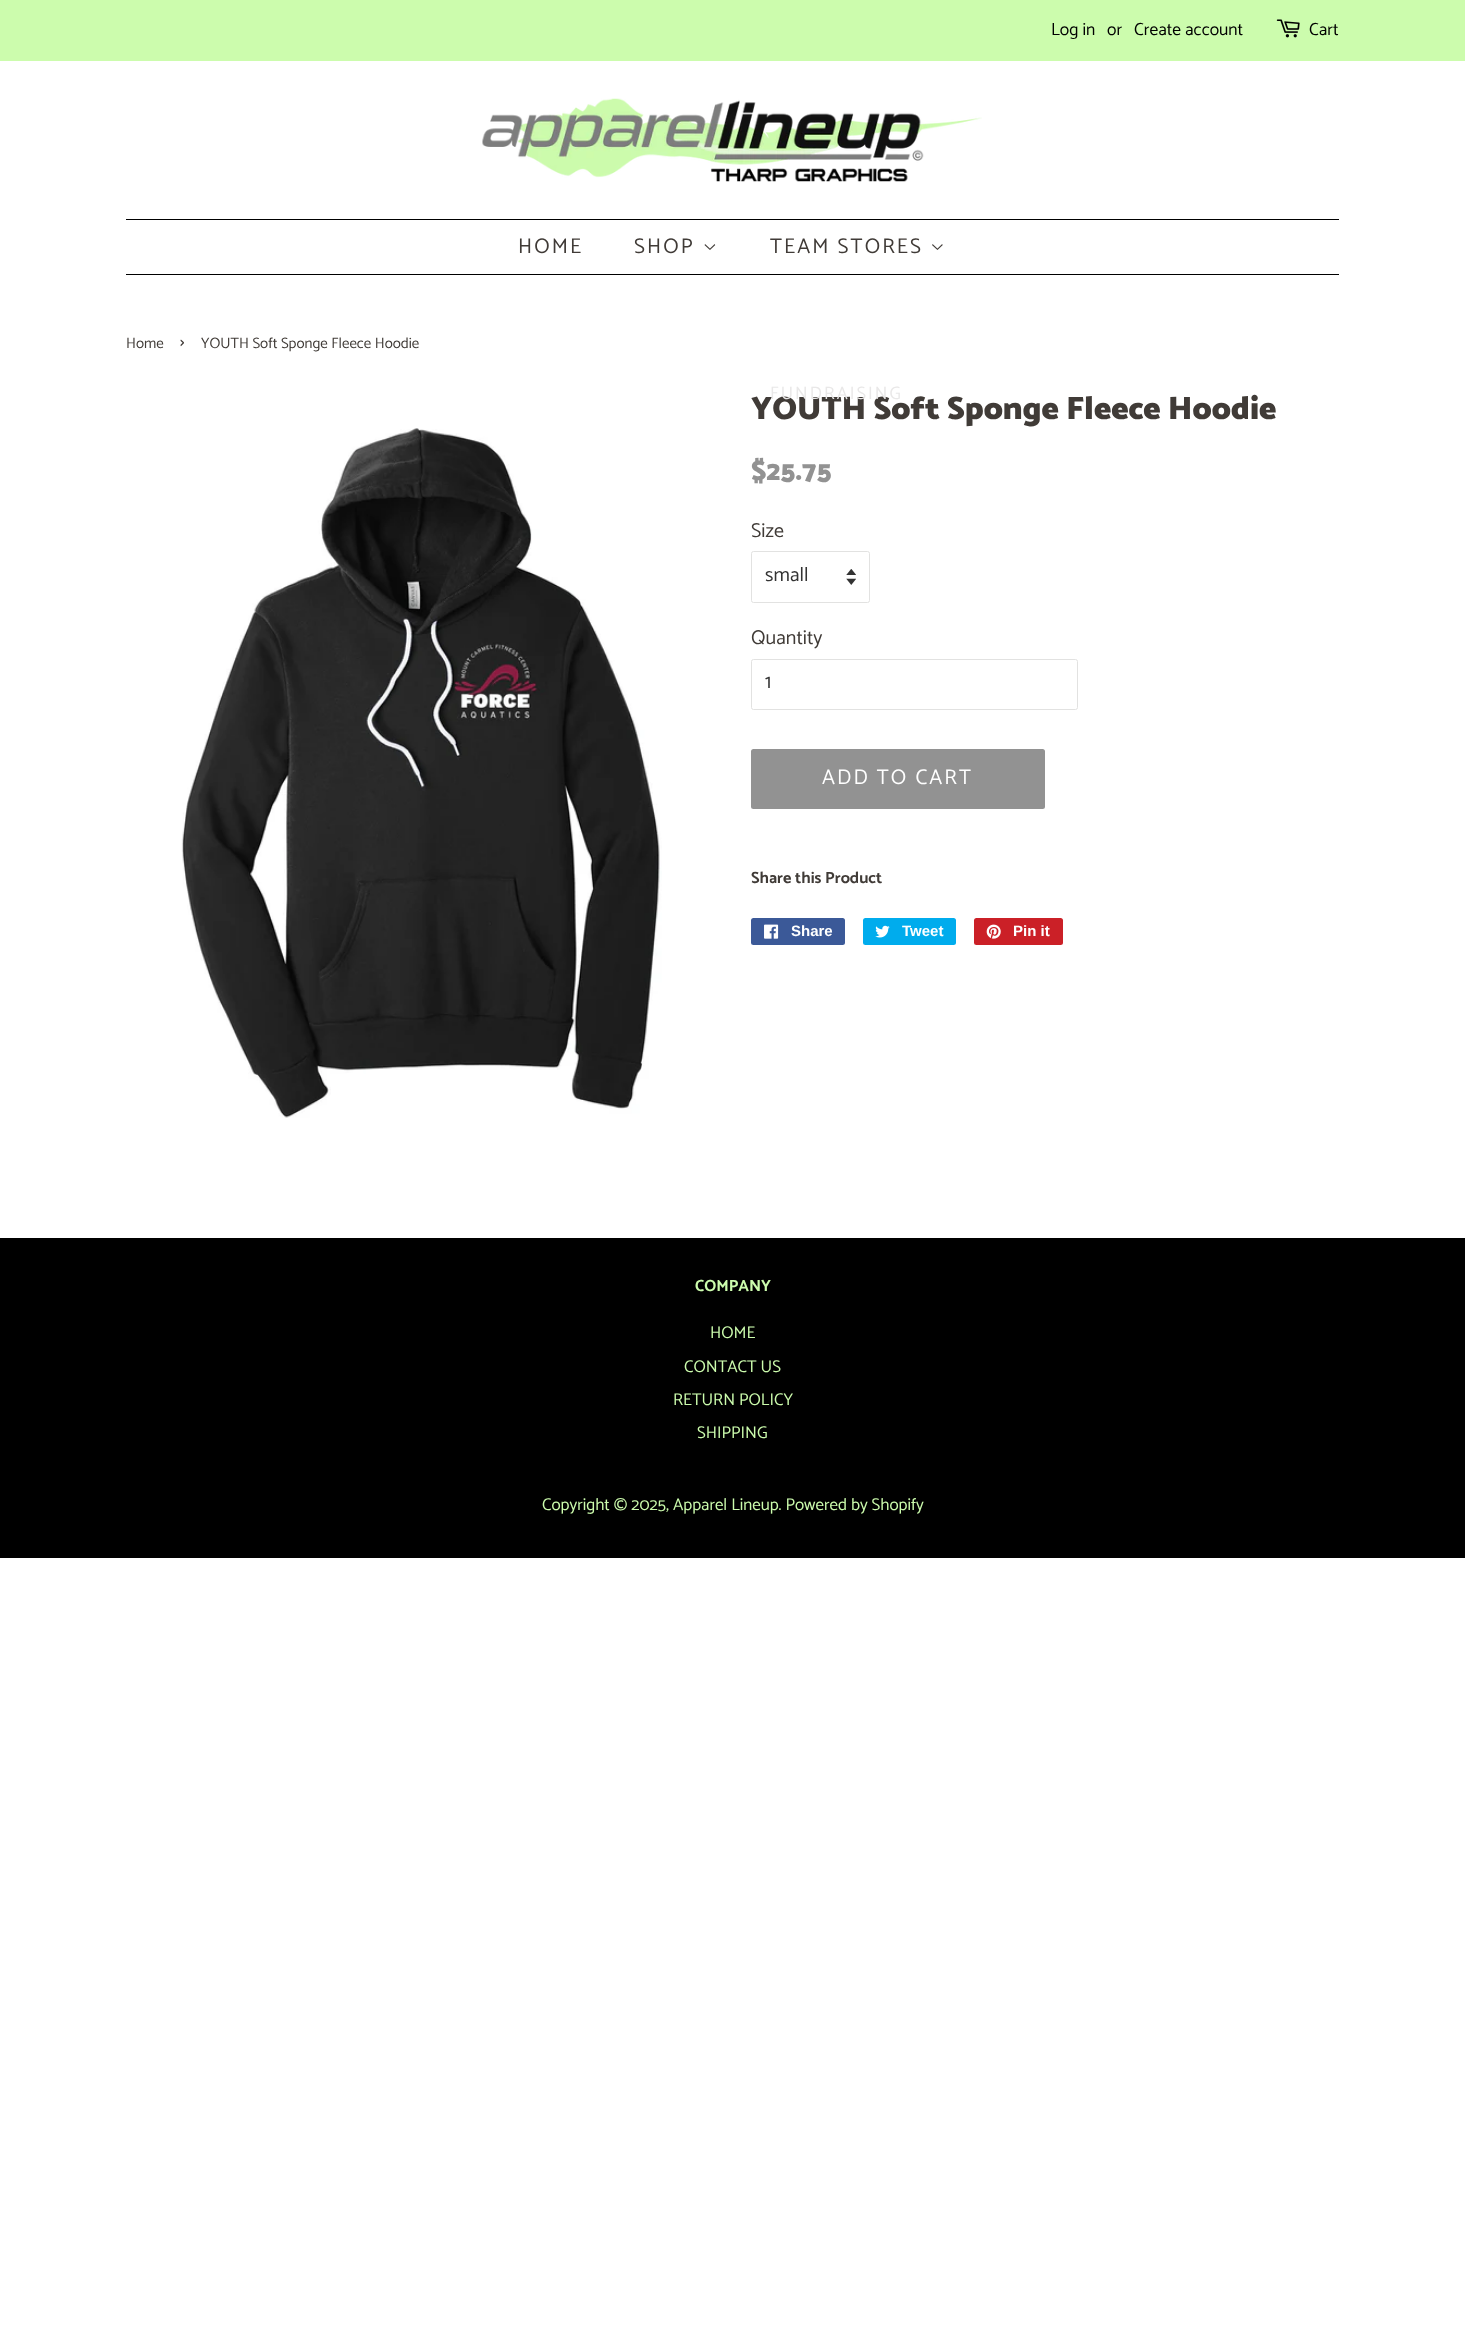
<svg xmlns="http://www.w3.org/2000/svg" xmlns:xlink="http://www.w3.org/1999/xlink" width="1465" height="2337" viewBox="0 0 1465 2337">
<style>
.cls-1{font:17.5px Catamaran;fill:#000000}
.cls-2{font:21.25px Catamaran;letter-spacing:2.1px;fill:#403b37}
.cls-3{font:15px Catamaran;fill:#403b37}
.cls-4{font:21px Catamaran;fill:#403b37}
.cls-5{font:900 32.5px Catamaran;fill:#403b37}
.cls-6{font:18px Catamaran;letter-spacing:2.1px;fill:#e9e8e8}
.cls-7{font:900 28px Catamaran;fill:#929292}
.cls-8{font:20px Catamaran;fill:#403b37}
.cls-9{font:20px Catamaran;fill:#333333}
.cls-10{font:21.25px Catamaran;letter-spacing:2.1px;fill:#ffffff}
.cls-11{font:bold 16.25px Catamaran;fill:#403b37}
.cls-12{font:bold 15px Liberation Sans;fill:#ffffff}
.cls-13{font:bold 16.25px Catamaran;fill:#ccfcad}
.cls-14{font:17px Catamaran;fill:#ccfcad}
</style>
<rect width="100%" height="100%" fill="#ffffff"/>
<rect fill="#ccfcad" x="0" y="0" width="1465" height="61"/>
<image xlink:href="image0.png" x="1276" y="19" width="24" height="19"/>
<image xlink:href="image1.png" x="482" y="98" width="500" height="84"/>
<rect fill="#000000" x="126" y="219" width="1213" height="1"/>
<rect fill="#000000" x="126" y="274" width="1213" height="1"/>
<image xlink:href="image2.png" x="704" y="244" width="12" height="6"/>
<image xlink:href="image3.png" x="932" y="244" width="11" height="6"/>
<image xlink:href="image4.png" x="181" y="428" width="481" height="690"/>
<image xlink:href="image5.png" x="846" y="569" width="10" height="16"/>
<rect fill="none" stroke="#e2e2e1" x="751.5" y="551.5" width="118" height="51" rx="2"/>
<rect fill="none" stroke="#e2e2e1" x="751.5" y="659.5" width="326" height="50" rx="2"/>
<rect fill="#929292" x="751" y="749" width="294" height="60" rx="2.5"/>
<rect fill="#3b5998" x="751" y="918" width="94" height="27" rx="2.5"/>
<image xlink:href="image6.png" x="764" y="924" width="15" height="15"/>
<rect fill="#00aced" x="863" y="918" width="93" height="27" rx="2.5"/>
<image xlink:href="image7.png" x="875" y="925" width="15" height="13"/>
<rect fill="#cb2027" x="974" y="918" width="89" height="27" rx="2.5"/>
<image xlink:href="image8.png" x="986" y="924" width="15" height="15"/>
<rect fill="#000000" x="0" y="1238" width="1465" height="320"/>
<text class="cls-1" x="1051" y="35">Log in</text>
<text class="cls-1" x="1107" y="35">or</text>
<text class="cls-1" x="1134" y="35">Create account</text>
<text class="cls-1" x="1309" y="35">Cart</text>
<text class="cls-2" x="518" y="253">HOME</text>
<text class="cls-2" x="634" y="253">SHOP</text>
<text class="cls-2" x="770" y="253">TEAM STORES</text>
<text class="cls-3" x="126" y="348">Home</text>
<text class="cls-4" x="180" y="348">›</text>
<text class="cls-3" x="201" y="348">YOUTH Soft Sponge Fleece Hoodie</text>
<text class="cls-5" x="751" y="419">YOUTH Soft Sponge Fleece Hoodie</text>
<text class="cls-6" x="770" y="399">FUNDRAISING</text>
<text class="cls-7" x="751" y="480">$25.75</text>
<text class="cls-8" x="751" y="537">Size</text>
<text class="cls-9" x="765" y="581">small</text>
<text class="cls-8" x="751" y="644">Quantity</text>
<text class="cls-9" x="765" y="688">1</text>
<text class="cls-10" x="822" y="784">ADD TO CART</text>
<text class="cls-11" x="751" y="883">Share this Product</text>
<text class="cls-12" x="791" y="936">Share</text>
<text class="cls-12" x="902" y="936">Tweet</text>
<text class="cls-12" x="1013" y="936">Pin it</text>
<text class="cls-13" x="695" y="1291">COMPANY</text>
<text class="cls-14" x="710" y="1338">HOME</text>
<text class="cls-14" x="684" y="1372">CONTACT US</text>
<text class="cls-14" x="673" y="1405">RETURN POLICY</text>
<text class="cls-14" x="697" y="1438">SHIPPING</text>
<text class="cls-14" x="542" y="1510">Copyright © 2025, Apparel Lineup. Powered by Shopify</text>
</svg>
